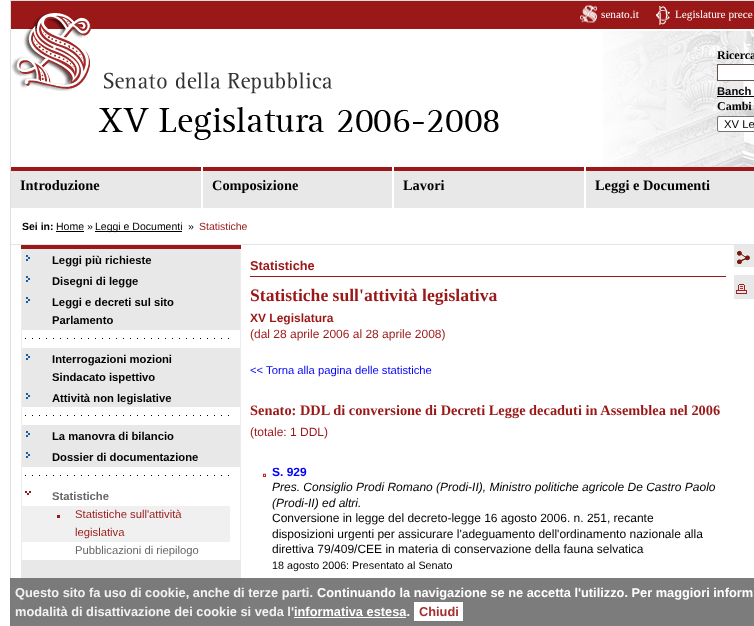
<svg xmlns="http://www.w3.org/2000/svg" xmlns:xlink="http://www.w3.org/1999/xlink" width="754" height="626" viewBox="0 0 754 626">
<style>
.cls-1{font:11.25px Liberation Serif;fill:#ffffff}
.cls-2{font:bold 12px Liberation Serif;fill:#000000}
.cls-3{font:bold 11.25px Liberation Sans;fill:#000000}
.cls-4{font:11.25px Liberation Sans;fill:#000000}
.cls-5{font:bold 14.4px Liberation Serif;fill:#000000}
.cls-6{font:bold 10.5px Liberation Sans;fill:#000000}
.cls-7{font:10.5px Liberation Sans;fill:#000000}
.cls-8{font:10.5px Liberation Sans;fill:#9b1818}
.cls-9{font:bold 11.25px Liberation Sans;fill:#666666}
.cls-10{font:11.25px Liberation Sans;fill:#9b1818}
.cls-11{font:11.25px Liberation Sans;fill:#666666}
.cls-12{font:bold 12.8px Liberation Sans;fill:#9b1818}
.cls-13{font:bold 17.6px Liberation Serif;fill:#9b1818}
.cls-14{font:bold 12px Liberation Sans;fill:#9b1818}
.cls-15{font:12px Liberation Sans;fill:#9b1818}
.cls-16{font:11.25px Liberation Sans;fill:#0000ff}
.cls-17{font:bold 14.4px Liberation Serif;fill:#9b1818}
.cls-18{font:bold 12px Liberation Sans;fill:#0000ff}
.cls-19{font:italic 12px Liberation Sans;fill:#000000}
.cls-20{font:12px Liberation Sans;fill:#000000}
.cls-21{font:10.75px Liberation Sans;fill:#000000}
.cls-22{font:bold 12.8px Liberation Sans;fill:#f2f2f2}
.cls-23{font:bold 12.8px Liberation Sans;fill:#ffffff}
.cls-24{font:bold 12.8px Liberation Sans;fill:#a52f2f}
</style>
<rect width="100%" height="100%" fill="#ffffff"/>
<rect fill="none" stroke="#dfdfdf" x="10.5" y="0.5" width="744" height="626"/>
<image xlink:href="image0.png" x="603" y="31" width="151" height="136"/>
<image xlink:href="image1.png" x="11" y="1" width="368" height="93"/>
<image xlink:href="image2.png" x="98" y="107" width="401" height="33"/>
<rect fill="#9b1818" x="379" y="1" width="375" height="28"/>
<image xlink:href="image3.png" x="580" y="5" width="17" height="18"/>
<image xlink:href="image4.png" x="656" y="6" width="14" height="19"/>
<rect fill="#ffffff" stroke="#61534e" x="717.5" y="64.5" width="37" height="16"/>
<rect fill="#000000" x="717" y="96" width="37" height="1"/>
<rect fill="#ffffff" stroke="#767676" x="717.5" y="116.5" width="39" height="15" rx="1.5"/>
<rect fill="#e8e8e8" x="11" y="171" width="190" height="37"/>
<rect fill="#9b1818" x="11" y="167" width="190" height="4"/>
<rect fill="#e8e8e8" x="203" y="171" width="189" height="37"/>
<rect fill="#9b1818" x="203" y="167" width="189" height="4"/>
<rect fill="#e8e8e8" x="394" y="171" width="190" height="37"/>
<rect fill="#9b1818" x="394" y="167" width="190" height="4"/>
<rect fill="#e8e8e8" x="586" y="171" width="168" height="37"/>
<rect fill="#9b1818" x="586" y="167" width="168" height="4"/>
<rect fill="#e5e5e5" x="11" y="244" width="743" height="1"/>
<rect fill="#000000" x="56" y="231" width="28" height="1"/>
<rect fill="#000000" x="95" y="231" width="87" height="1"/>
<rect fill="#e8e8e8" x="21" y="249" width="220" height="371"/>
<rect fill="#9b1818" x="21" y="245" width="220" height="4"/>
<rect fill="#ededed" x="240" y="249" width="1" height="311"/>
<rect fill="#ededed" x="21" y="249" width="1" height="311"/>
<image xlink:href="image5.png" x="26" y="255" width="4" height="6"/>
<image xlink:href="image5.png" x="26" y="276" width="4" height="6"/>
<image xlink:href="image5.png" x="26" y="297" width="4" height="6"/>
<rect fill="#ffffff" x="22" y="330" width="218" height="18"/>
<image xlink:href="image6.png" x="25" y="338" width="204" height="1"/>
<image xlink:href="image5.png" x="26" y="354" width="4" height="6"/>
<image xlink:href="image5.png" x="26" y="393" width="4" height="6"/>
<rect fill="#ffffff" x="22" y="407" width="218" height="18"/>
<image xlink:href="image6.png" x="25" y="415" width="204" height="1"/>
<image xlink:href="image5.png" x="26" y="431" width="4" height="6"/>
<image xlink:href="image5.png" x="26" y="452" width="4" height="6"/>
<rect fill="#ffffff" x="22" y="467" width="218" height="93"/>
<image xlink:href="image6.png" x="25" y="475" width="204" height="1"/>
<image xlink:href="image7.png" x="25" y="491" width="6" height="4"/>
<rect fill="#f0f0f0" x="22" y="506" width="208" height="36"/>
<rect fill="#9b1818" x="57" y="515" width="3" height="3"/>
<rect fill="#9b1818" x="250" y="276" width="476" height="1"/>
<image xlink:href="image8.png" x="263" y="473" width="3" height="4"/>
<rect fill="#e7e8e7" x="734" y="245" width="20" height="22"/>
<image xlink:href="image9.png" x="737" y="250" width="13" height="14"/>
<rect fill="#e7e8e7" x="734" y="275" width="20" height="24"/>
<image xlink:href="image10.png" x="736" y="284" width="11" height="10"/>
<rect fill="#6e6e6e" fill-opacity="0.9" x="10" y="578" width="744" height="48"/>
<rect fill="#ffffff" x="294" y="617" width="112" height="1"/>
<rect fill="#ffffff" x="414" y="602" width="49" height="19"/>
<text class="cls-1" x="601" y="18">senato.it</text>
<text class="cls-1" x="675" y="18">Legislature prece</text>
<text class="cls-2" x="717" y="59">Ricerca</text>
<text class="cls-3" x="717" y="95">Banch</text>
<text class="cls-2" x="717" y="110">Cambi</text>
<text class="cls-4" x="724" y="128">XV Le</text>
<text class="cls-5" x="20" y="190">Introduzione</text>
<text class="cls-5" x="212" y="190">Composizione</text>
<text class="cls-5" x="403" y="190">Lavori</text>
<text class="cls-5" x="595" y="190">Leggi e Documenti</text>
<text class="cls-6" x="22" y="230">Sei in:</text>
<text class="cls-7" x="56" y="230">Home »</text>
<text class="cls-7" x="95" y="230">Leggi e Documenti</text>
<text class="cls-7" x="188" y="230">»</text>
<text class="cls-8" x="199" y="230">Statistiche</text>
<text class="cls-3"><tspan x="52" y="264">Leggi più richieste</tspan><tspan x="52" y="285">Disegni di legge</tspan><tspan x="52" y="306">Leggi e decreti sul sito</tspan><tspan x="52" y="324">Parlamento</tspan></text>
<text class="cls-3"><tspan x="52" y="363">Interrogazioni mozioni</tspan><tspan x="52" y="381">Sindacato ispettivo</tspan><tspan x="52" y="402">Attività non legislative</tspan></text>
<text class="cls-3"><tspan x="52" y="440">La manovra di bilancio</tspan><tspan x="52" y="461">Dossier di documentazione</tspan></text>
<text class="cls-9" x="52" y="500">Statistiche</text>
<text class="cls-10"><tspan x="75" y="518">Statistiche sull'attività</tspan><tspan x="75" y="536">legislativa</tspan></text>
<text class="cls-11" x="75" y="554">Pubblicazioni di riepilogo</text>
<text class="cls-12" x="250" y="270">Statistiche</text>
<text class="cls-13" x="250" y="301">Statistiche sull'attività legislativa</text>
<text class="cls-14" x="250" y="322">XV Legislatura</text>
<text class="cls-15" x="250" y="338">(dal 28 aprile 2006 al 28 aprile 2008)</text>
<text class="cls-16" x="250" y="374">&lt;&lt; Torna alla pagina delle statistiche</text>
<text class="cls-17" x="250" y="415">Senato: DDL di conversione di Decreti Legge decaduti in Assemblea nel 2006</text>
<text class="cls-15" x="250" y="436">(totale: 1 DDL)</text>
<text class="cls-18" x="272" y="476">S. 929</text>
<text class="cls-19"><tspan x="272" y="491">Pres. Consiglio Prodi Romano (Prodi-II), Ministro politiche agricole De Castro Paolo</tspan><tspan x="272" y="507">(Prodi-II) ed altri.</tspan></text>
<text class="cls-20"><tspan x="272" y="522">Conversione in legge del decreto-legge 16 agosto 2006. n. 251, recante</tspan><tspan x="272" y="538">disposizioni urgenti per assicurare l'adeguamento dell'ordinamento nazionale alla</tspan><tspan x="272" y="553">direttiva 79/409/CEE in materia di conservazione della fauna selvatica</tspan></text>
<text class="cls-21" x="272" y="569">18 agosto 2006: Presentato al Senato</text>
<text class="cls-22" x="15" y="597">Questo sito fa uso di cookie, anche di terze parti.</text>
<text class="cls-23" x="317" y="597">Continuando la navigazione se ne accetta l'utilizzo. Per maggiori inform</text>
<text class="cls-22" x="15" y="616">modalità di disattivazione dei cookie si veda l'</text>
<text class="cls-23" x="294" y="616">informativa estesa.</text>
<text class="cls-24" x="419" y="616">Chiudi</text>
</svg>
